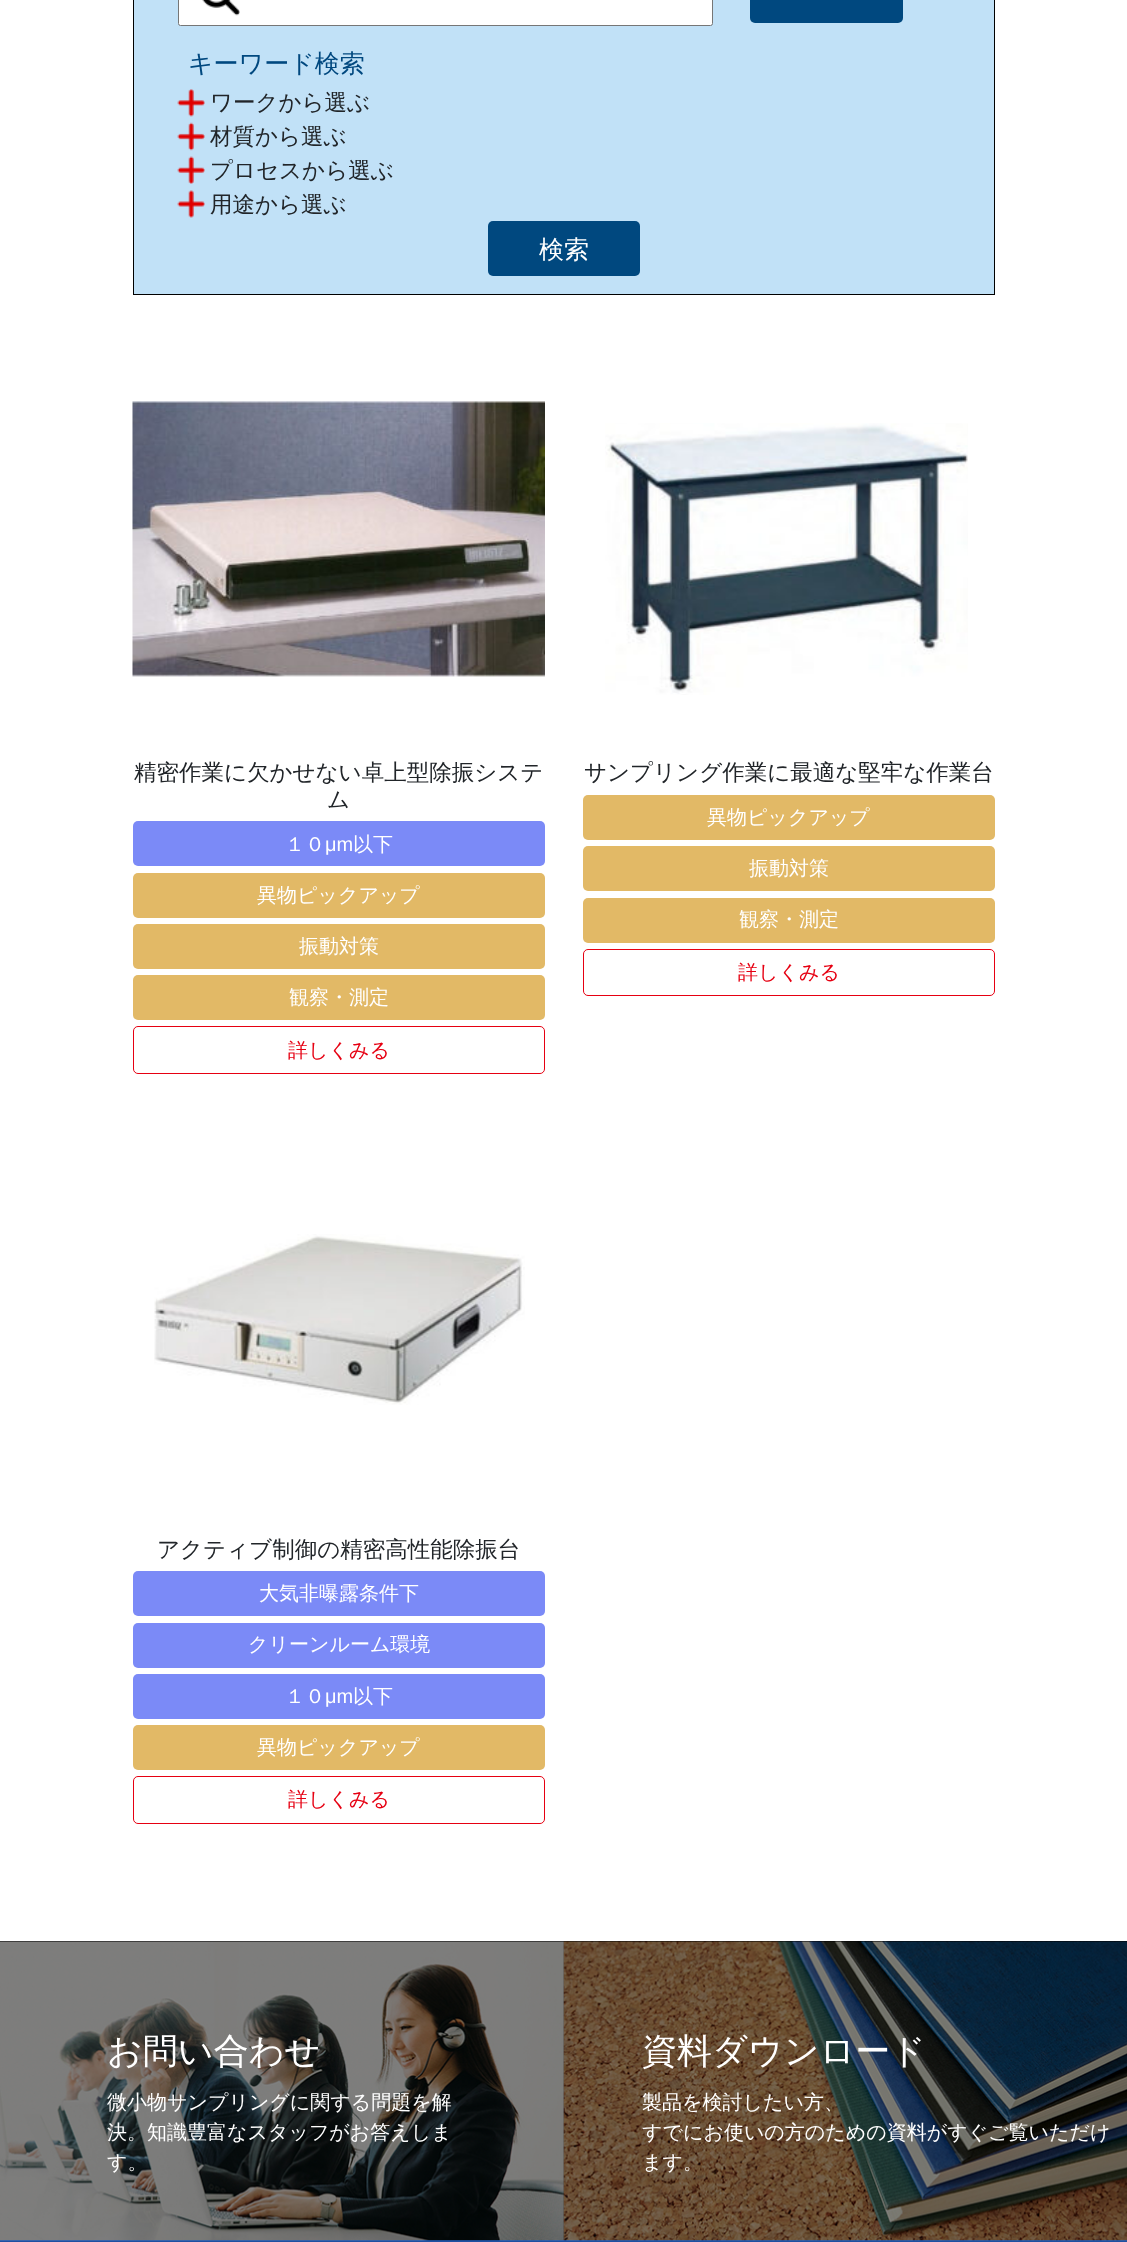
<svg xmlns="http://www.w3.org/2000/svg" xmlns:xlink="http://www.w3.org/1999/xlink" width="1127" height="2242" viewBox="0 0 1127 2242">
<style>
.cls-1{font:500 25px WenQuanYi Zen Hei;fill:#00487f}
.cls-2{font:500 22.5px WenQuanYi Zen Hei;fill:#212529}
.cls-3{font:500 25px WenQuanYi Zen Hei;fill:#ffffff}
.cls-4{font:500 20px WenQuanYi Zen Hei;fill:#ffffff}
.cls-5{font:20px Liberation Sans;fill:#ffffff}
.cls-6{font:500 20px WenQuanYi Zen Hei;fill:#e60012}
.cls-7{font:500 35px WenQuanYi Zen Hei;fill:#ffffff}
</style>
<rect width="100%" height="100%" fill="#ffffff"/>
<rect fill="#c1e1f7" stroke="#000000" x="133.5" y="-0.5" width="861" height="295"/>
<rect fill="#ffffff" stroke="#767676" x="178.5" y="-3.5" width="534" height="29" rx="2"/>
<rect fill="#00487f" x="750" y="-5" width="153" height="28" rx="5"/>
<image xlink:href="image0.png" x="202" y="0" width="38" height="16"/>
<image xlink:href="image1.png" x="177" y="89" width="28" height="28"/>
<image xlink:href="image2.png" x="177" y="122" width="28" height="29"/>
<image xlink:href="image3.png" x="177" y="156" width="28" height="28"/>
<image xlink:href="image4.png" x="177" y="190" width="28" height="28"/>
<rect fill="#00487f" x="488" y="221" width="152" height="55" rx="5"/>
<image xlink:href="image5.png" x="132" y="401" width="413" height="276"/>
<rect fill="#7b8af7" x="133" y="821" width="412" height="45" rx="5"/>
<rect fill="#e2b966" x="133" y="873" width="412" height="45" rx="5"/>
<rect fill="#e2b966" x="133" y="924" width="412" height="45" rx="5"/>
<rect fill="#e2b966" x="133" y="975" width="412" height="45" rx="5"/>
<rect fill="none" stroke="#e60012" x="133.5" y="1026.5" width="411" height="47" rx="4.5"/>
<image xlink:href="image6.png" x="605" y="423" width="363" height="272"/>
<rect fill="#e2b966" x="583" y="795" width="412" height="45" rx="5"/>
<rect fill="#e2b966" x="583" y="846" width="412" height="45" rx="5"/>
<rect fill="#e2b966" x="583" y="898" width="412" height="45" rx="5"/>
<rect fill="none" stroke="#e60012" x="583.5" y="949.5" width="411" height="46" rx="4.5"/>
<image xlink:href="image7.png" x="154" y="1234" width="371" height="171"/>
<rect fill="#7b8af7" x="133" y="1571" width="412" height="45" rx="5"/>
<rect fill="#7b8af7" x="133" y="1623" width="412" height="45" rx="5"/>
<rect fill="#7b8af7" x="133" y="1674" width="412" height="45" rx="5"/>
<rect fill="#e2b966" x="133" y="1725" width="412" height="45" rx="5"/>
<rect fill="none" stroke="#e60012" x="133.5" y="1776.5" width="411" height="47" rx="4.5"/>
<rect fill="#000000" x="0" y="1941" width="1127" height="299"/>
<rect fill="#1e50a2" x="0" y="2240" width="1127" height="2"/>
<image xlink:href="image8.png" x="0" y="1941" width="564" height="300"/>
<image xlink:href="image9.png" x="563" y="1941" width="564" height="300"/>
<text class="cls-1" x="188" y="72">キーワード検索</text>
<text class="cls-2"><tspan x="210" y="110">ワークから選ぶ</tspan><tspan x="210" y="144">材質から選ぶ</tspan><tspan x="210" y="178">プロセスから選ぶ</tspan><tspan x="210" y="212">⽤途から選ぶ</tspan></text>
<text class="cls-3" x="539" y="258">検索</text>
<text class="cls-2" x="134" y="780">精密作業に欠かせない卓上型除振システ</text>
<text class="cls-2" x="327" y="807">ム</text>
<text class="cls-4" x="285" y="851">１０</text>
<text class="cls-5" x="325" y="851">μm</text>
<text class="cls-4" x="353" y="851">以下</text>
<text class="cls-4" x="257" y="902">異物ピックアップ</text>
<text class="cls-4" x="299" y="953">振動対策</text>
<text class="cls-4" x="289" y="1004">観察・測定</text>
<text class="cls-6" x="288" y="1057">詳しくみる</text>
<text class="cls-2" x="584" y="780">サンプリング作業に最適な堅牢な作業台</text>
<text class="cls-4" x="707" y="824">異物ピックアップ</text>
<text class="cls-4" x="749" y="875">振動対策</text>
<text class="cls-4" x="739" y="926">観察・測定</text>
<text class="cls-6" x="738" y="979">詳しくみる</text>
<text class="cls-2" x="157" y="1557">アクティブ制御の精密高性能除振台</text>
<text class="cls-4" x="259" y="1600">大気非曝露条件下</text>
<text class="cls-4" x="248" y="1651">クリーンルーム環境</text>
<text class="cls-4" x="285" y="1703">１０</text>
<text class="cls-5" x="325" y="1703">μm</text>
<text class="cls-4" x="353" y="1703">以下</text>
<text class="cls-4" x="257" y="1754">異物ピックアップ</text>
<text class="cls-6" x="288" y="1806">詳しくみる</text>
<text class="cls-7" x="107" y="2063">お問い合わせ</text>
<text class="cls-4"><tspan x="107" y="2109">微小物サンプリングに関する問題を解</tspan><tspan x="107" y="2139">決。知識豊富なスタッフがお答えしま</tspan><tspan x="107" y="2169">す。</tspan></text>
<text class="cls-7" x="642" y="2063">資料ダウンロード</text>
<text class="cls-4"><tspan x="642" y="2109">製品を検討したい方、</tspan><tspan x="642" y="2139">すでにお使いの方のための資料がすぐご覧いただけ</tspan><tspan x="642" y="2169">ます。</tspan></text>
</svg>
